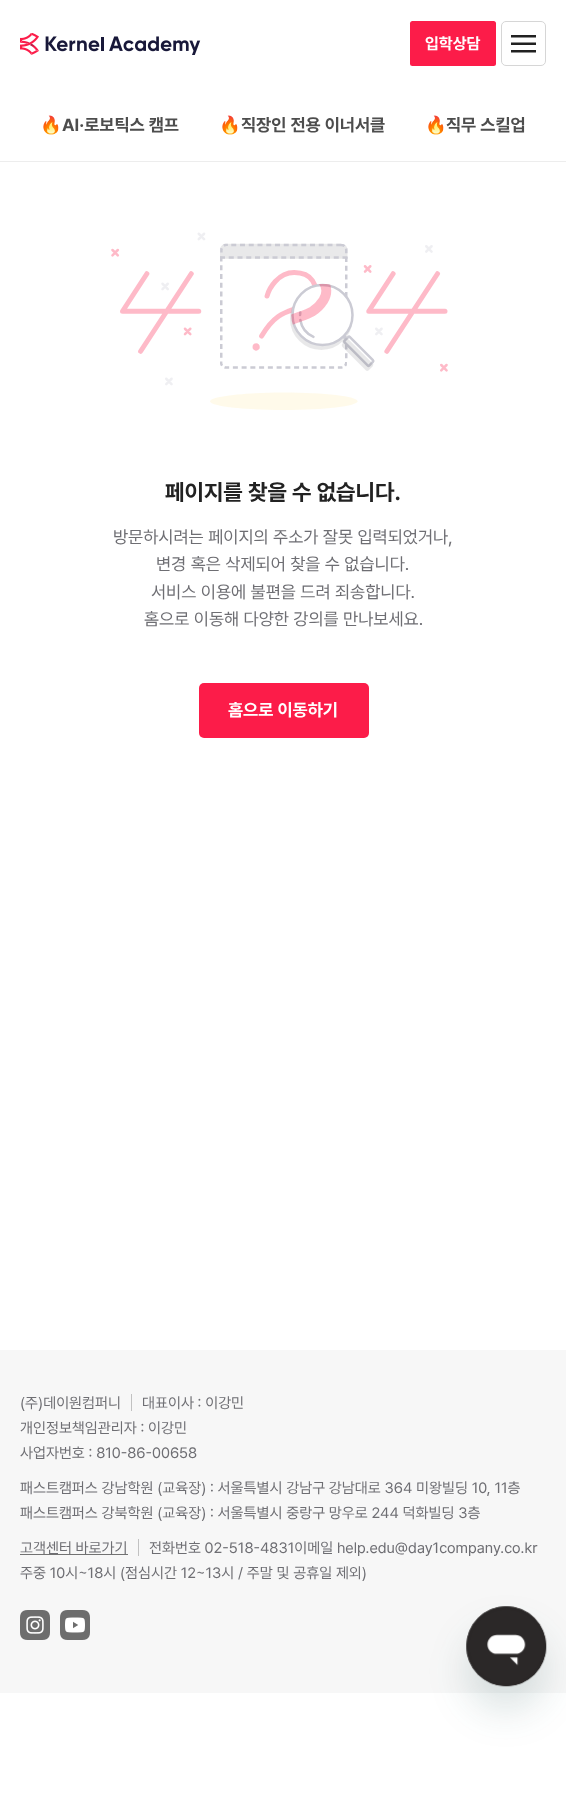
<svg xmlns="http://www.w3.org/2000/svg" xmlns:xlink="http://www.w3.org/1999/xlink" width="566" height="1810" viewBox="0 0 566 1810">
<style>
.cls-1{font:bold 16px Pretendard;fill:#ffffff}
.cls-2{font:bold 17.5px Noto Color Emoji;fill:#4d4d4d}
.cls-3{font:bold 17.5px Pretendard;fill:#4d4d4d}
.cls-4{font:bold 22.5px Pretendard;fill:#222222}
.cls-5{font:17.5px Pretendard;fill:#6e6e73}
.cls-6{font:bold 17.5px Pretendard;fill:#ffffff}
.cls-7{font:15px Pretendard;fill:#6e6e73}
</style>
<rect width="100%" height="100%" fill="#ffffff"/>
<rect fill="#ededed" x="0" y="161" width="566" height="1"/>
<image xlink:href="image0.png" x="20" y="33" width="181" height="22"/>
<rect fill="#fc1c49" x="410" y="21" width="86" height="45" rx="2.5"/>
<path fill="#212121" fill-rule="evenodd" d="M511 35H536V37.5H511ZM511 42.5H536V45H511ZM536 50H511V52.5H536Z"/>
<rect fill="none" stroke="#d6d6d6" x="501.5" y="21.5" width="44" height="44" rx="4.5"/>
<image xlink:href="image1.png" x="111" y="232" width="337" height="178"/>
<rect fill="#fc1c49" x="199" y="683" width="170" height="55" rx="5"/>
<rect fill="#f7f7f7" x="0" y="1350" width="566" height="343"/>
<rect fill="#c1c1c1" x="131" y="1394" width="1" height="17"/>
<rect fill="#727272" x="20" y="1554" width="108" height="1"/>
<rect fill="#c1c1c1" x="138" y="1539" width="1" height="17"/>
<image xlink:href="image2.png" x="20" y="1610" width="30" height="30"/>
<image xlink:href="image3.png" x="60" y="1610" width="30" height="30"/>
<rect fill="#17494d" fill-opacity="0.15" filter="blur(19px)" x="466" y="1631" width="80" height="80" rx="40"/>
<image xlink:href="image4.png" x="466" y="1606" width="81" height="81"/>
<text class="cls-1" x="425" y="49">입학상담</text>
<text class="cls-2" x="40" y="131">🔥</text>
<text class="cls-3" x="62" y="131">AI·로보틱스 캠프</text>
<text class="cls-2" x="219" y="131">🔥</text>
<text class="cls-3" x="241" y="131">직장인 전용 이너서클</text>
<text class="cls-2" x="425" y="131">🔥</text>
<text class="cls-3" x="446" y="131">직무 스킬업</text>
<text class="cls-4" x="165" y="500">페이지를 찾을 수 없습니다.</text>
<text class="cls-5" x="113" y="543">방문하시려는 페이지의 주소가 잘못 입력되었거나,</text>
<text class="cls-5" x="156" y="570">변경 혹은 삭제되어 찾을 수 없습니다.</text>
<text class="cls-5" x="151" y="598">서비스 이용에 불편을 드려 죄송합니다.</text>
<text class="cls-5" x="144" y="625">홈으로 이동해 다양한 강의를 만나보세요.</text>
<text class="cls-6" x="228" y="716">홈으로 이동하기</text>
<text class="cls-7" x="20" y="1408">(주)데이원컴퍼니</text>
<text class="cls-7" x="142" y="1408">대표이사 : 이강민</text>
<text class="cls-7"><tspan x="20" y="1433">개인정보책임관리자 : 이강민</tspan><tspan x="20" y="1458">사업자번호 : 810-86-00658</tspan></text>
<text class="cls-7"><tspan x="20" y="1493">패스트캠퍼스 강남학원 (교육장) : 서울특별시 강남구 강남대로 364 미왕빌딩 10, 11층</tspan><tspan x="20" y="1518">패스트캠퍼스 강북학원 (교육장) : 서울특별시 중랑구 망우로 244 덕화빌딩 3층</tspan></text>
<text class="cls-7" x="20" y="1553">고객센터 바로가기</text>
<text class="cls-7" x="149" y="1553">전화번호 02-518-4831이메일 help.edu@day1company.co.kr</text>
<text class="cls-7" x="20" y="1578">주중 10시~18시 (점심시간 12~13시 / 주말 및 공휴일 제외)</text>
</svg>
